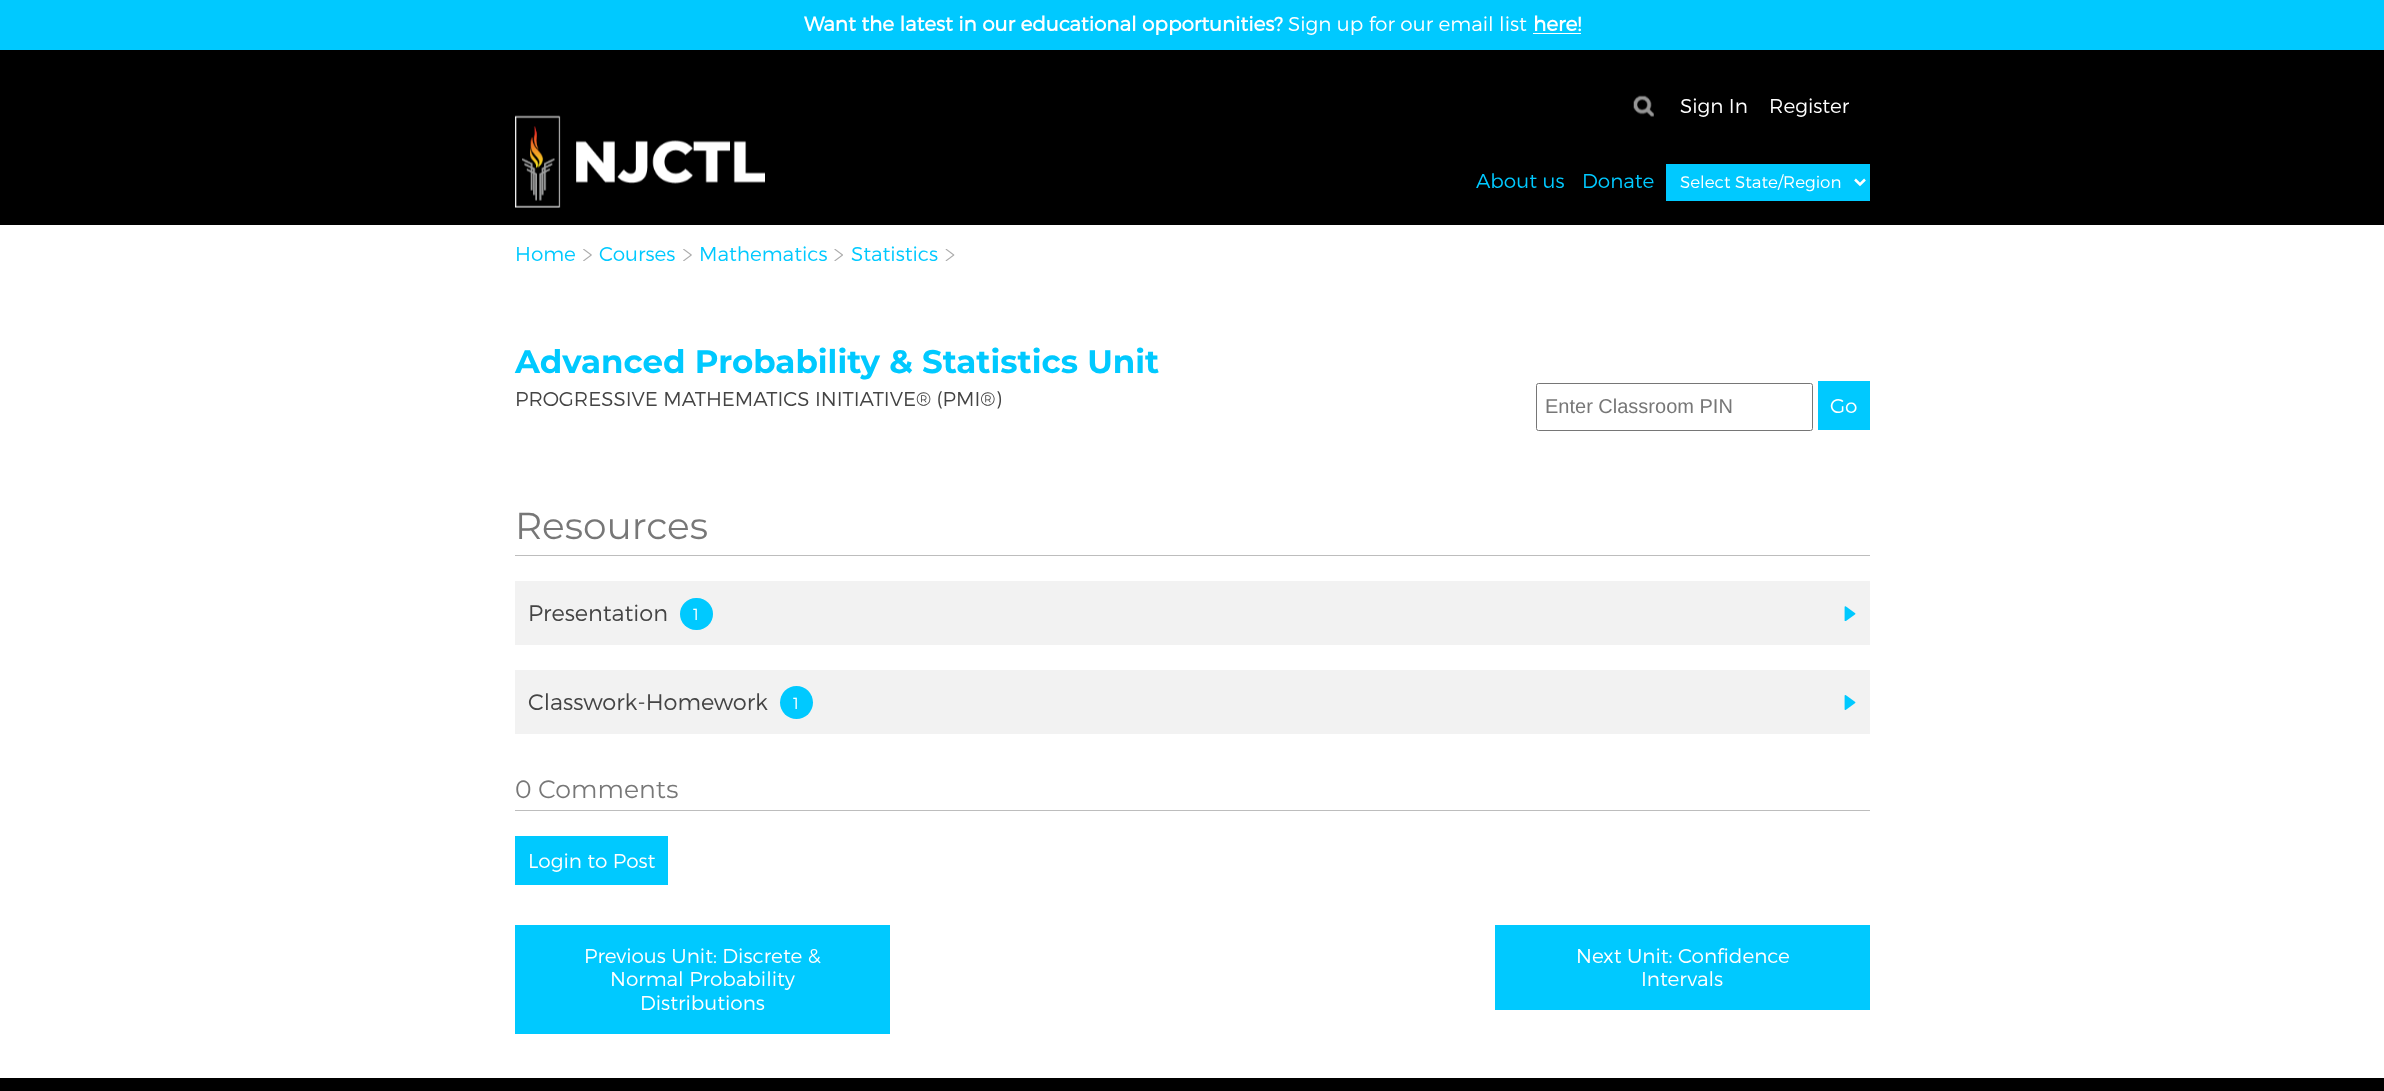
<svg xmlns="http://www.w3.org/2000/svg" xmlns:xlink="http://www.w3.org/1999/xlink" width="2384" height="1091" viewBox="0 0 2384 1091">
<style>
.cls-1{font:bold 20px 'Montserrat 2';fill:#ffffff}
.cls-2{font:300 20px Montserrat;fill:#ffffff}
.cls-3{font:300 20px Montserrat;fill:#00c9ff}
.cls-4{font:300 16.75px Montserrat;fill:#ffffff}
.cls-5{font:bold 32.5px Montserrat;fill:#00c9ff}
.cls-6{font:300 20px Montserrat;fill:#444444}
.cls-7{font:20px Liberation Sans;fill:#777777}
.cls-8{font:37.5px Montserrat;fill:#777777}
.cls-9{font:300 22.5px Montserrat;fill:#444444}
.cls-10{font:300 16px Montserrat;fill:#ffffff}
.cls-11{font:25px Montserrat;fill:#777777}
</style>
<rect width="100%" height="100%" fill="#ffffff"/>
<rect fill="#000000" x="0" y="50" width="2384" height="175"/>
<rect fill="#00c9ff" x="0" y="0" width="2384" height="50"/>
<rect fill="#ffffff" x="1533" y="33" width="48" height="1"/>
<image xlink:href="image0.png" x="515" y="115" width="250" height="93"/>
<image xlink:href="image1.png" x="1633" y="95" width="21" height="22"/>
<rect fill="#00c9ff" x="1666" y="164" width="204" height="37"/>
<path fill="none" stroke="#ffffff" stroke-width="2.5" d="M1855 179.5L1860 184.5L1865 179.5"/>
<image xlink:href="image2.png" x="583" y="249" width="9" height="12"/>
<image xlink:href="image2.png" x="683" y="249" width="9" height="12"/>
<image xlink:href="image3.png" x="834" y="249" width="9" height="12"/>
<image xlink:href="image4.png" x="945" y="249" width="10" height="12"/>
<rect fill="none" stroke="#767676" x="1536.5" y="383.5" width="276" height="47" rx="2"/>
<rect fill="#00c9ff" x="1818" y="381" width="52" height="49"/>
<rect fill="#bdbdbd" x="515" y="555" width="1355" height="1"/>
<rect fill="#f2f2f2" x="515" y="581" width="1355" height="64"/>
<rect fill="#00c9ff" x="680" y="598" width="33" height="32" rx="16"/>
<image xlink:href="image5.png" x="1844" y="606" width="12" height="15"/>
<rect fill="#f2f2f2" x="515" y="670" width="1355" height="64"/>
<circle fill="#00c9ff" cx="796.5" cy="702.5" r="16.5"/>
<image xlink:href="image6.png" x="1844" y="695" width="12" height="15"/>
<rect fill="#bdbdbd" x="515" y="810" width="1355" height="1"/>
<rect fill="#00c9ff" x="515" y="836" width="153" height="49"/>
<rect fill="#00c9ff" x="515" y="925" width="375" height="109"/>
<rect fill="#00c9ff" x="1495" y="925" width="375" height="85"/>
<rect fill="#000000" x="0" y="1078" width="2384" height="13"/>
<text class="cls-1" x="804" y="31">Want the latest in our educational opportunities?</text>
<text class="cls-2" x="1288" y="31">Sign up for our email list</text>
<text class="cls-1" x="1533" y="31">here!</text>
<text class="cls-2" x="1680" y="113">Sign In</text>
<text class="cls-2" x="1769" y="113">Register</text>
<text class="cls-3" x="1476" y="188">About us</text>
<text class="cls-3" x="1582" y="188">Donate</text>
<text class="cls-4" x="1680" y="188">Select State/Region</text>
<text class="cls-3" x="515" y="261">Home</text>
<text class="cls-3" x="599" y="261">Courses</text>
<text class="cls-3" x="699" y="261">Mathematics</text>
<text class="cls-3" x="851" y="261">Statistics</text>
<text class="cls-5" x="515" y="373">Advanced Probability &amp; Statistics Unit</text>
<text class="cls-6" x="515" y="406">PROGRESSIVE MATHEMATICS INITIATIVE® (PMI®)</text>
<text class="cls-7" x="1545" y="413">Enter Classroom PIN</text>
<text class="cls-2" x="1830" y="413">Go</text>
<text class="cls-8" x="515" y="539">Resources</text>
<text class="cls-9" x="528" y="621">Presentation</text>
<text class="cls-10" x="693" y="620">1</text>
<text class="cls-9" x="528" y="710">Classwork-Homework</text>
<text class="cls-10" x="793" y="709">1</text>
<text class="cls-11" x="515" y="798">0 Comments</text>
<text class="cls-2" x="528" y="868">Login to Post</text>
<text class="cls-2" x="584" y="963">Previous Unit: Discrete &amp;</text>
<text class="cls-2" x="610" y="986">Normal Probability</text>
<text class="cls-2" x="640" y="1010">Distributions</text>
<text class="cls-2" x="1576" y="963">Next Unit: Confidence</text>
<text class="cls-2" x="1641" y="986">Intervals</text>
</svg>
